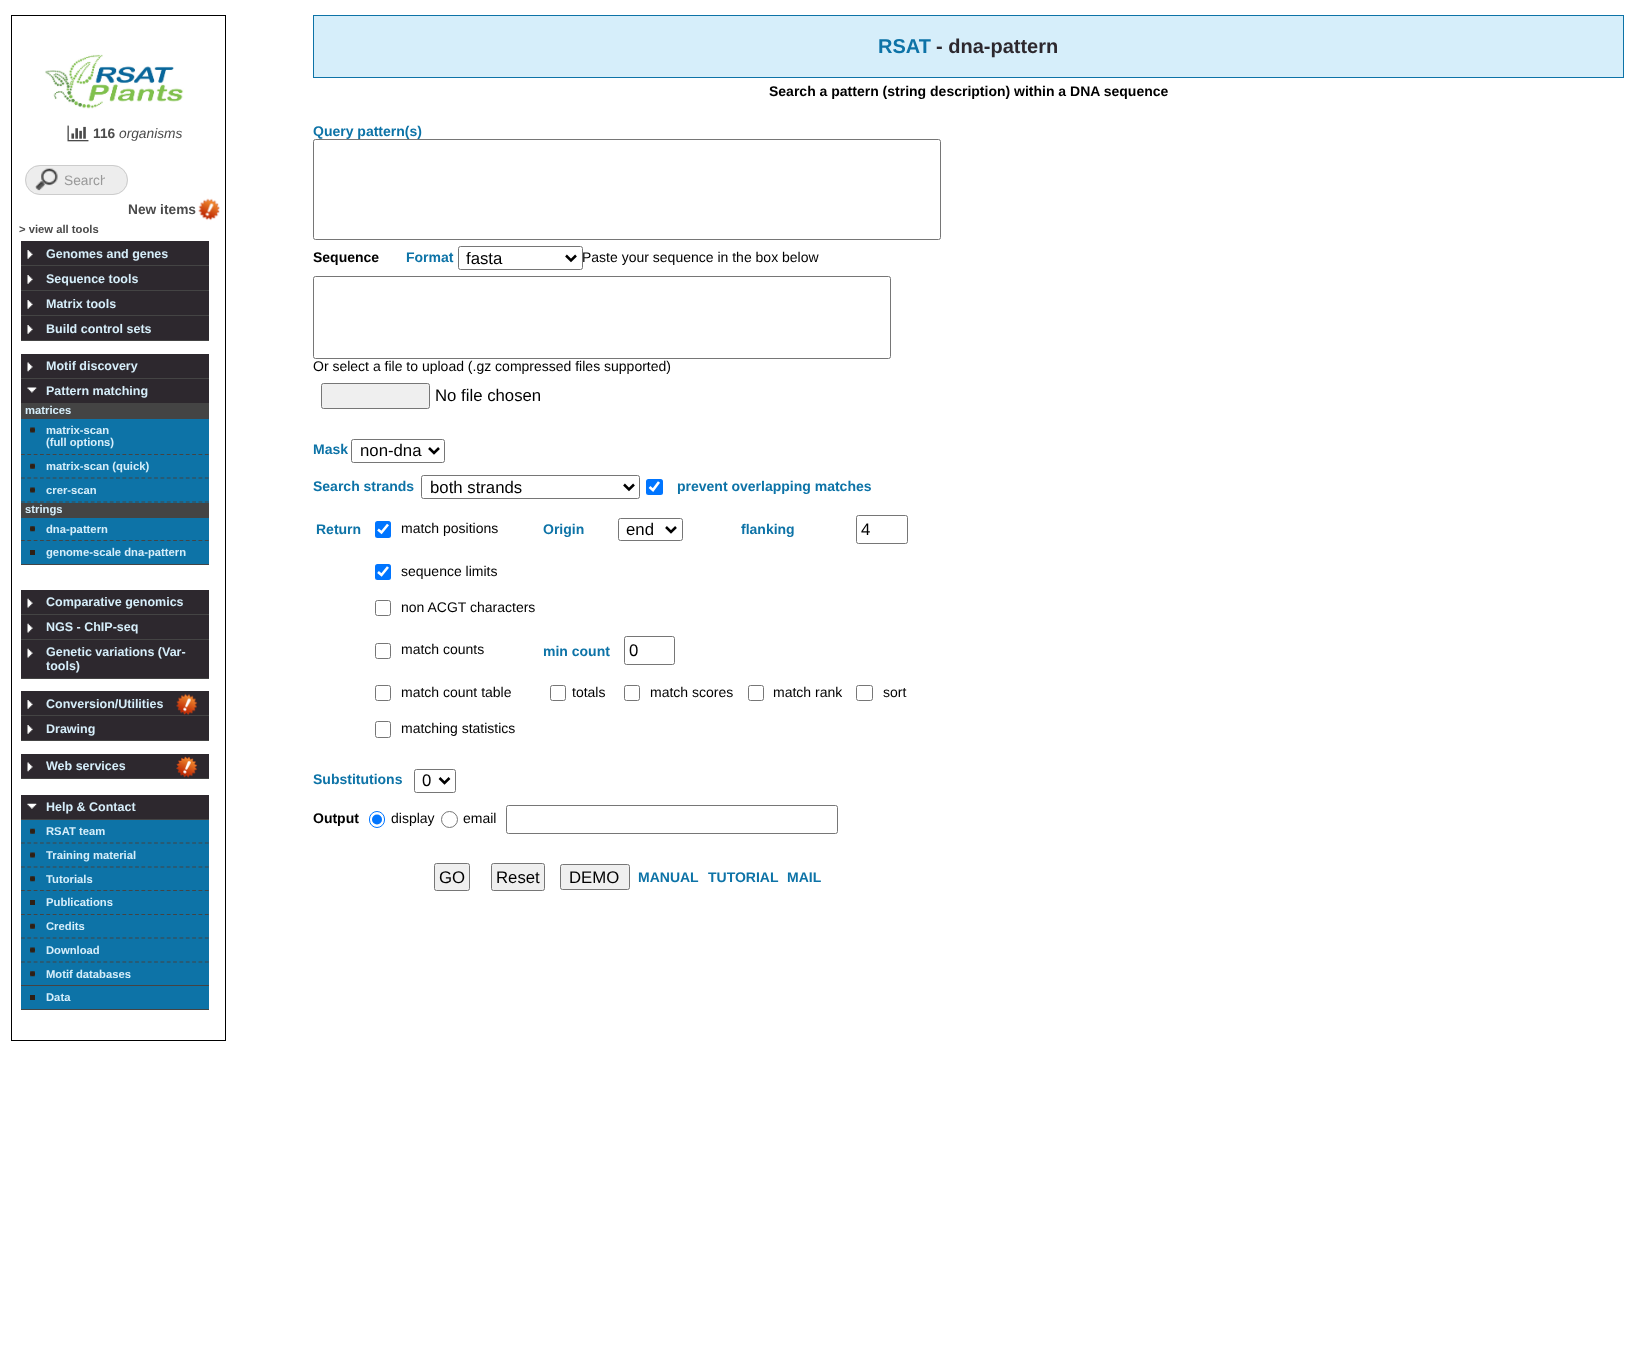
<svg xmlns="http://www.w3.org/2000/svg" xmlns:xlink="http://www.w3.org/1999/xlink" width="1648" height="1359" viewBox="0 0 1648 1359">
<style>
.cls-1{font:bold 13.75px Liberation Sans;fill:#4a4a4a}
.cls-2{font:italic 13.75px Liberation Sans;fill:#4a4a4a}
.cls-3{font:13.75px Liberation Sans;fill:#999999}
.cls-4{font:bold 11.25px Liberation Sans;fill:#4a4a4a}
.cls-5{font:bold 12.5px Liberation Sans;fill:#d6eefa}
.cls-6{font:bold 11.25px Liberation Sans;fill:#d6eefa}
.cls-7{font:bold 20px Liberation Sans;fill:#0d73a7}
.cls-8{font:bold 20px Liberation Sans;fill:#2d282e}
.cls-9{font:bold 14px Liberation Sans;fill:#000000}
.cls-10{font:bold 14px Liberation Sans;fill:#0d73a7}
.cls-11{font:16.75px Liberation Sans;fill:#000000}
.cls-12{font:14px Liberation Sans;fill:#000000}
</style>
<defs>
<clipPath id="clip1"><rect x="64" y="173" width="41" height="15"/></clipPath>
</defs>
<rect width="100%" height="100%" fill="#ffffff"/>
<rect fill="none" stroke="#000000" x="11.5" y="15.5" width="214" height="1025"/>
<image xlink:href="image0.png" x="45" y="54" width="139" height="55"/>
<image xlink:href="image1.png" x="67" y="125" width="22" height="17"/>
<rect fill="#ededed" x="25" y="165" width="103" height="30" rx="15"/>
<image xlink:href="image2.png" x="35" y="168" width="23" height="23"/>
<rect fill="none" stroke="#cccccc" x="25.5" y="165.5" width="102" height="29" rx="14.5"/>
<image xlink:href="image3.png" x="198" y="198" width="22" height="23"/>
<rect fill="#2d282e" x="21" y="241" width="188" height="24"/>
<image xlink:href="image4.png" x="27" y="250" width="6" height="9"/>
<rect fill="#444444" x="21" y="265" width="188" height="1"/>
<rect fill="#2d282e" x="21" y="266" width="188" height="24"/>
<image xlink:href="image4.png" x="27" y="275" width="6" height="9"/>
<rect fill="#444444" x="21" y="290" width="188" height="1"/>
<rect fill="#2d282e" x="21" y="291" width="188" height="24"/>
<image xlink:href="image4.png" x="27" y="300" width="6" height="9"/>
<rect fill="#444444" x="21" y="315" width="188" height="1"/>
<rect fill="#2d282e" x="21" y="316" width="188" height="24"/>
<image xlink:href="image4.png" x="27" y="325" width="6" height="9"/>
<rect fill="#444444" x="21" y="340" width="188" height="1"/>
<rect fill="#2d282e" x="21" y="354" width="188" height="24"/>
<image xlink:href="image5.png" x="27" y="362" width="6" height="10"/>
<rect fill="#444444" x="21" y="378" width="188" height="1"/>
<rect fill="#2d282e" x="21" y="379" width="188" height="24"/>
<image xlink:href="image6.png" x="27" y="387" width="10" height="6"/>
<rect fill="#444444" x="21" y="403" width="188" height="16"/>
<rect fill="#0d73a7" x="21" y="419" width="188" height="36"/>
<image xlink:href="image7.png" x="30" y="427" width="5" height="6"/>
<path fill="none" stroke="#444444" stroke-width="1.2" stroke-dasharray="3.75 2.59" d="M21 454.5H209"/>
<rect fill="#0d73a7" x="21" y="455" width="188" height="48"/>
<image xlink:href="image8.png" x="30" y="463" width="5" height="6"/>
<path fill="none" stroke="#444444" stroke-width="1.2" stroke-dasharray="3.75 2.59" d="M21 478H209"/>
<image xlink:href="image7.png" x="30" y="487" width="5" height="6"/>
<path fill="none" stroke="#444444" stroke-width="1.2" stroke-dasharray="3.75 2.59" d="M21 502H209"/>
<rect fill="#444444" x="21" y="503" width="188" height="15"/>
<rect fill="#0d73a7" x="21" y="518" width="188" height="23"/>
<image xlink:href="image9.png" x="30" y="526" width="5" height="6"/>
<path fill="none" stroke="#444444" stroke-width="1.2" stroke-dasharray="3.75 2.59" d="M21 540.5H209"/>
<rect fill="#0d73a7" x="21" y="541" width="188" height="23"/>
<rect fill="#2e2015" x="30" y="550" width="5" height="5"/>
<rect fill="#444444" x="21" y="564" width="188" height="1"/>
<rect fill="#2d282e" x="21" y="590" width="188" height="24"/>
<image xlink:href="image10.png" x="27" y="598" width="6" height="10"/>
<rect fill="#444444" x="21" y="614" width="188" height="1"/>
<rect fill="#2d282e" x="21" y="615" width="188" height="24"/>
<image xlink:href="image10.png" x="27" y="623" width="6" height="10"/>
<rect fill="#444444" x="21" y="639" width="188" height="1"/>
<rect fill="#2d282e" x="21" y="640" width="188" height="38"/>
<image xlink:href="image10.png" x="27" y="648" width="6" height="10"/>
<rect fill="#444444" x="21" y="678" width="188" height="1"/>
<rect fill="#2d282e" x="21" y="691" width="188" height="24"/>
<image xlink:href="image4.png" x="27" y="700" width="6" height="9"/>
<rect fill="#444444" x="21" y="715" width="188" height="1"/>
<image xlink:href="image11.png" x="176" y="693" width="22" height="22"/>
<rect fill="#2d282e" x="21" y="716" width="188" height="24"/>
<image xlink:href="image4.png" x="27" y="725" width="6" height="9"/>
<rect fill="#444444" x="21" y="740" width="188" height="1"/>
<rect fill="#2d282e" x="21" y="754" width="188" height="24"/>
<image xlink:href="image5.png" x="27" y="762" width="6" height="10"/>
<rect fill="#444444" x="21" y="778" width="188" height="1"/>
<image xlink:href="image12.png" x="176" y="756" width="22" height="22"/>
<rect fill="#2d282e" x="21" y="795" width="188" height="24"/>
<image xlink:href="image13.png" x="27" y="803" width="10" height="6"/>
<rect fill="#444444" x="21" y="819" width="188" height="1"/>
<rect fill="#0d73a7" x="21" y="820" width="188" height="71"/>
<image xlink:href="image8.png" x="30" y="828" width="5" height="6"/>
<path fill="none" stroke="#444444" stroke-width="1.2" stroke-dasharray="3.75 2.59" d="M21 843H209"/>
<image xlink:href="image7.png" x="30" y="852" width="5" height="6"/>
<path fill="none" stroke="#444444" stroke-width="1.2" stroke-dasharray="3.75 2.59" d="M21 867H209"/>
<image xlink:href="image9.png" x="30" y="876" width="5" height="6"/>
<path fill="none" stroke="#444444" stroke-width="1.2" stroke-dasharray="3.75 2.59" d="M21 890.5H209"/>
<rect fill="#0d73a7" x="21" y="891" width="188" height="24"/>
<rect fill="#2e2015" x="30" y="900" width="5" height="5"/>
<path fill="none" stroke="#444444" stroke-width="1.2" stroke-dasharray="3.75 2.59" d="M21 914.5H209"/>
<rect fill="#0d73a7" x="21" y="915" width="188" height="70"/>
<image xlink:href="image8.png" x="30" y="923" width="5" height="6"/>
<path fill="none" stroke="#444444" stroke-width="1.2" stroke-dasharray="3.75 2.59" d="M21 938H209"/>
<image xlink:href="image7.png" x="30" y="947" width="5" height="6"/>
<path fill="none" stroke="#444444" stroke-width="1.2" stroke-dasharray="3.75 2.59" d="M21 962H209"/>
<image xlink:href="image9.png" x="30" y="971" width="5" height="6"/>
<rect fill="#444444" x="21" y="985" width="188" height="1"/>
<rect fill="#0d73a7" x="21" y="986" width="188" height="23"/>
<rect fill="#2e2015" x="30" y="995" width="5" height="5"/>
<rect fill="#444444" x="21" y="1009" width="188" height="1"/>
<rect fill="#d6eefa" stroke="#0d73a7" x="313.5" y="15.5" width="1310" height="62"/>
<rect fill="none" stroke="#767676" x="313.5" y="139.5" width="627" height="100" rx="2"/>
<rect fill="none" stroke="#767676" x="458.5" y="246.5" width="124" height="23" rx="2"/>
<path fill="none" stroke="#000000" stroke-width="2.5" d="M566 255.5L571 260.5L576 255.5"/>
<rect fill="none" stroke="#767676" x="313.5" y="276.5" width="577" height="82" rx="2"/>
<rect fill="#efefef" stroke="#767676" x="321.5" y="383.5" width="108" height="25" rx="2"/>
<rect fill="none" stroke="#767676" x="351.5" y="439.5" width="93" height="23" rx="2"/>
<path fill="none" stroke="#000000" stroke-width="2.5" d="M429 448L434 453L439 448"/>
<rect fill="none" stroke="#767676" x="421.5" y="475.5" width="218" height="23" rx="2"/>
<path fill="none" stroke="#000000" stroke-width="2.5" d="M624 484.5L629 489.5L634 484.5"/>
<rect fill="#0075ff" x="646" y="479" width="17" height="16" rx="2.5"/>
<path fill="none" stroke="#ffffff" stroke-width="2.6" d="M649.5 487L653 490L659 482"/>
<rect fill="#0075ff" x="375" y="521" width="16" height="17" rx="2.5"/>
<path fill="none" stroke="#ffffff" stroke-width="2.6" d="M378 529.5L381.5 532.5L388 524.5"/>
<rect fill="none" stroke="#767676" x="618.5" y="518.5" width="64" height="22" rx="2"/>
<path fill="none" stroke="#000000" stroke-width="2.5" d="M666 527L671 532L676 527"/>
<rect fill="none" stroke="#767676" x="856.5" y="515.5" width="51" height="28" rx="2"/>
<rect fill="#0075ff" x="375" y="564" width="16" height="16" rx="2.5"/>
<path fill="none" stroke="#ffffff" stroke-width="2.6" d="M378 572L381.5 575L388 567"/>
<rect fill="none" stroke="#767676" x="375.5" y="600.5" width="15" height="15" rx="2"/>
<rect fill="none" stroke="#767676" x="375.5" y="643.5" width="15" height="15" rx="2"/>
<rect fill="none" stroke="#767676" x="624.5" y="636.5" width="50" height="28" rx="2"/>
<rect fill="none" stroke="#767676" x="375.5" y="685.5" width="15" height="15" rx="2"/>
<rect fill="none" stroke="#767676" x="550.5" y="685.5" width="15" height="15" rx="2"/>
<rect fill="none" stroke="#767676" x="624.5" y="685.5" width="15" height="15" rx="2"/>
<rect fill="none" stroke="#767676" x="748.5" y="685.5" width="15" height="15" rx="2"/>
<rect fill="none" stroke="#767676" x="856.5" y="685.5" width="16" height="15" rx="2"/>
<rect fill="none" stroke="#767676" x="375.5" y="721.5" width="15" height="16" rx="2"/>
<rect fill="none" stroke="#767676" x="414.5" y="769.5" width="41" height="23" rx="2"/>
<path fill="none" stroke="#000000" stroke-width="2.5" d="M439.5 778L444.5 783L449.5 778"/>
<rect fill="none" stroke="#0075ff" x="369.5" y="811.5" width="15" height="16" rx="7.5"/>
<circle fill="#0075ff" cx="377" cy="819.5" r="5"/>
<circle fill="none" stroke="#767676" cx="449.5" cy="819.5" r="8"/>
<rect fill="none" stroke="#767676" x="506.5" y="805.5" width="331" height="28" rx="2"/>
<rect fill="#efefef" stroke="#767676" x="434.5" y="863.5" width="35" height="27" rx="2"/>
<rect fill="#efefef" stroke="#767676" x="491.5" y="863.5" width="53" height="27" rx="2"/>
<rect fill="#efefef" stroke="#767676" x="560.5" y="864.5" width="69" height="25" rx="2"/>
<text class="cls-1" x="93" y="138">116</text>
<text class="cls-2" x="119" y="138">organisms</text>
<g clip-path="url(#clip1)">
<text class="cls-3" x="64" y="185">Search</text>
</g>
<text class="cls-1" x="128" y="214">New items</text>
<text class="cls-4" x="19" y="233">&gt; view all tools</text>
<text class="cls-5" x="46" y="258">Genomes and genes</text>
<text class="cls-5" x="46" y="283">Sequence tools</text>
<text class="cls-5" x="46" y="308">Matrix tools</text>
<text class="cls-5" x="46" y="333">Build control sets</text>
<text class="cls-5" x="46" y="370">Motif discovery</text>
<text class="cls-5" x="46" y="395">Pattern matching</text>
<text class="cls-6" x="25" y="414">matrices</text>
<text class="cls-6"><tspan x="46" y="434">matrix-scan</tspan><tspan x="46" y="446">(full options)</tspan></text>
<text class="cls-6" x="46" y="470">matrix-scan (quick)</text>
<text class="cls-6" x="46" y="494">crer-scan</text>
<text class="cls-6" x="25" y="513">strings</text>
<text class="cls-6" x="46" y="533">dna-pattern</text>
<text class="cls-6" x="46" y="556">genome-scale dna-pattern</text>
<text class="cls-5" x="46" y="606">Comparative genomics</text>
<text class="cls-5" x="46" y="631">NGS - ChIP-seq</text>
<text class="cls-5"><tspan x="46" y="656">Genetic variations (Var-</tspan><tspan x="46" y="670">tools)</tspan></text>
<text class="cls-5" x="46" y="708">Conversion/Utilities</text>
<text class="cls-5" x="46" y="733">Drawing</text>
<text class="cls-5" x="46" y="770">Web services</text>
<text class="cls-5" x="46" y="811">Help &amp; Contact</text>
<text class="cls-6" x="46" y="835">RSAT team</text>
<text class="cls-6" x="46" y="859">Training material</text>
<text class="cls-6" x="46" y="883">Tutorials</text>
<text class="cls-6" x="46" y="906">Publications</text>
<text class="cls-6" x="46" y="930">Credits</text>
<text class="cls-6" x="46" y="954">Download</text>
<text class="cls-6" x="46" y="978">Motif databases</text>
<text class="cls-6" x="46" y="1001">Data</text>
<text class="cls-7" x="878" y="53">RSAT</text>
<text class="cls-8" x="936" y="53">- dna-pattern</text>
<text class="cls-9" x="769" y="96">Search a pattern (string description) within a DNA sequence</text>
<text class="cls-10" x="313" y="136">Query pattern(s)</text>
<text class="cls-9" x="313" y="262">Sequence</text>
<text class="cls-10" x="406" y="262">Format</text>
<text class="cls-11" x="466" y="264">fasta</text>
<text class="cls-12" x="582" y="262">Paste your sequence in the box below</text>
<text class="cls-12" x="313" y="371">Or select a file to upload (.gz compressed files supported)</text>
<text class="cls-11" x="435" y="401">No file chosen</text>
<text class="cls-10" x="313" y="454">Mask</text>
<text class="cls-11" x="360" y="456">non-dna</text>
<text class="cls-10" x="313" y="491">Search strands</text>
<text class="cls-11" x="430" y="493">both strands</text>
<text class="cls-10" x="677" y="491">prevent overlapping matches</text>
<text class="cls-10" x="316" y="534">Return</text>
<text class="cls-12" x="401" y="533">match positions</text>
<text class="cls-10" x="543" y="534">Origin</text>
<text class="cls-11" x="626" y="535">end</text>
<text class="cls-10" x="741" y="534">flanking</text>
<text class="cls-11" x="861" y="535">4</text>
<text class="cls-12" x="401" y="576">sequence limits</text>
<text class="cls-12" x="401" y="612">non ACGT characters</text>
<text class="cls-12" x="401" y="654">match counts</text>
<text class="cls-10" x="543" y="656">min count</text>
<text class="cls-11" x="629" y="656">0</text>
<text class="cls-12" x="401" y="697">match count table</text>
<text class="cls-12" x="572" y="697">totals</text>
<text class="cls-12" x="650" y="697">match scores</text>
<text class="cls-12" x="773" y="697">match rank</text>
<text class="cls-12" x="883" y="697">sort</text>
<text class="cls-12" x="401" y="733">matching statistics</text>
<text class="cls-10" x="313" y="784">Substitutions</text>
<text class="cls-11" x="422" y="786">0</text>
<text class="cls-9" x="313" y="823">Output</text>
<text class="cls-12" x="391" y="823">display</text>
<text class="cls-12" x="463" y="823">email</text>
<text class="cls-11" x="439" y="883">GO</text>
<text class="cls-11" x="496" y="883">Reset</text>
<text class="cls-11" x="569" y="883">DEMO</text>
<text class="cls-10" x="638" y="882">MANUAL</text>
<text class="cls-10" x="708" y="882">TUTORIAL</text>
<text class="cls-10" x="787" y="882">MAIL</text>
</svg>
